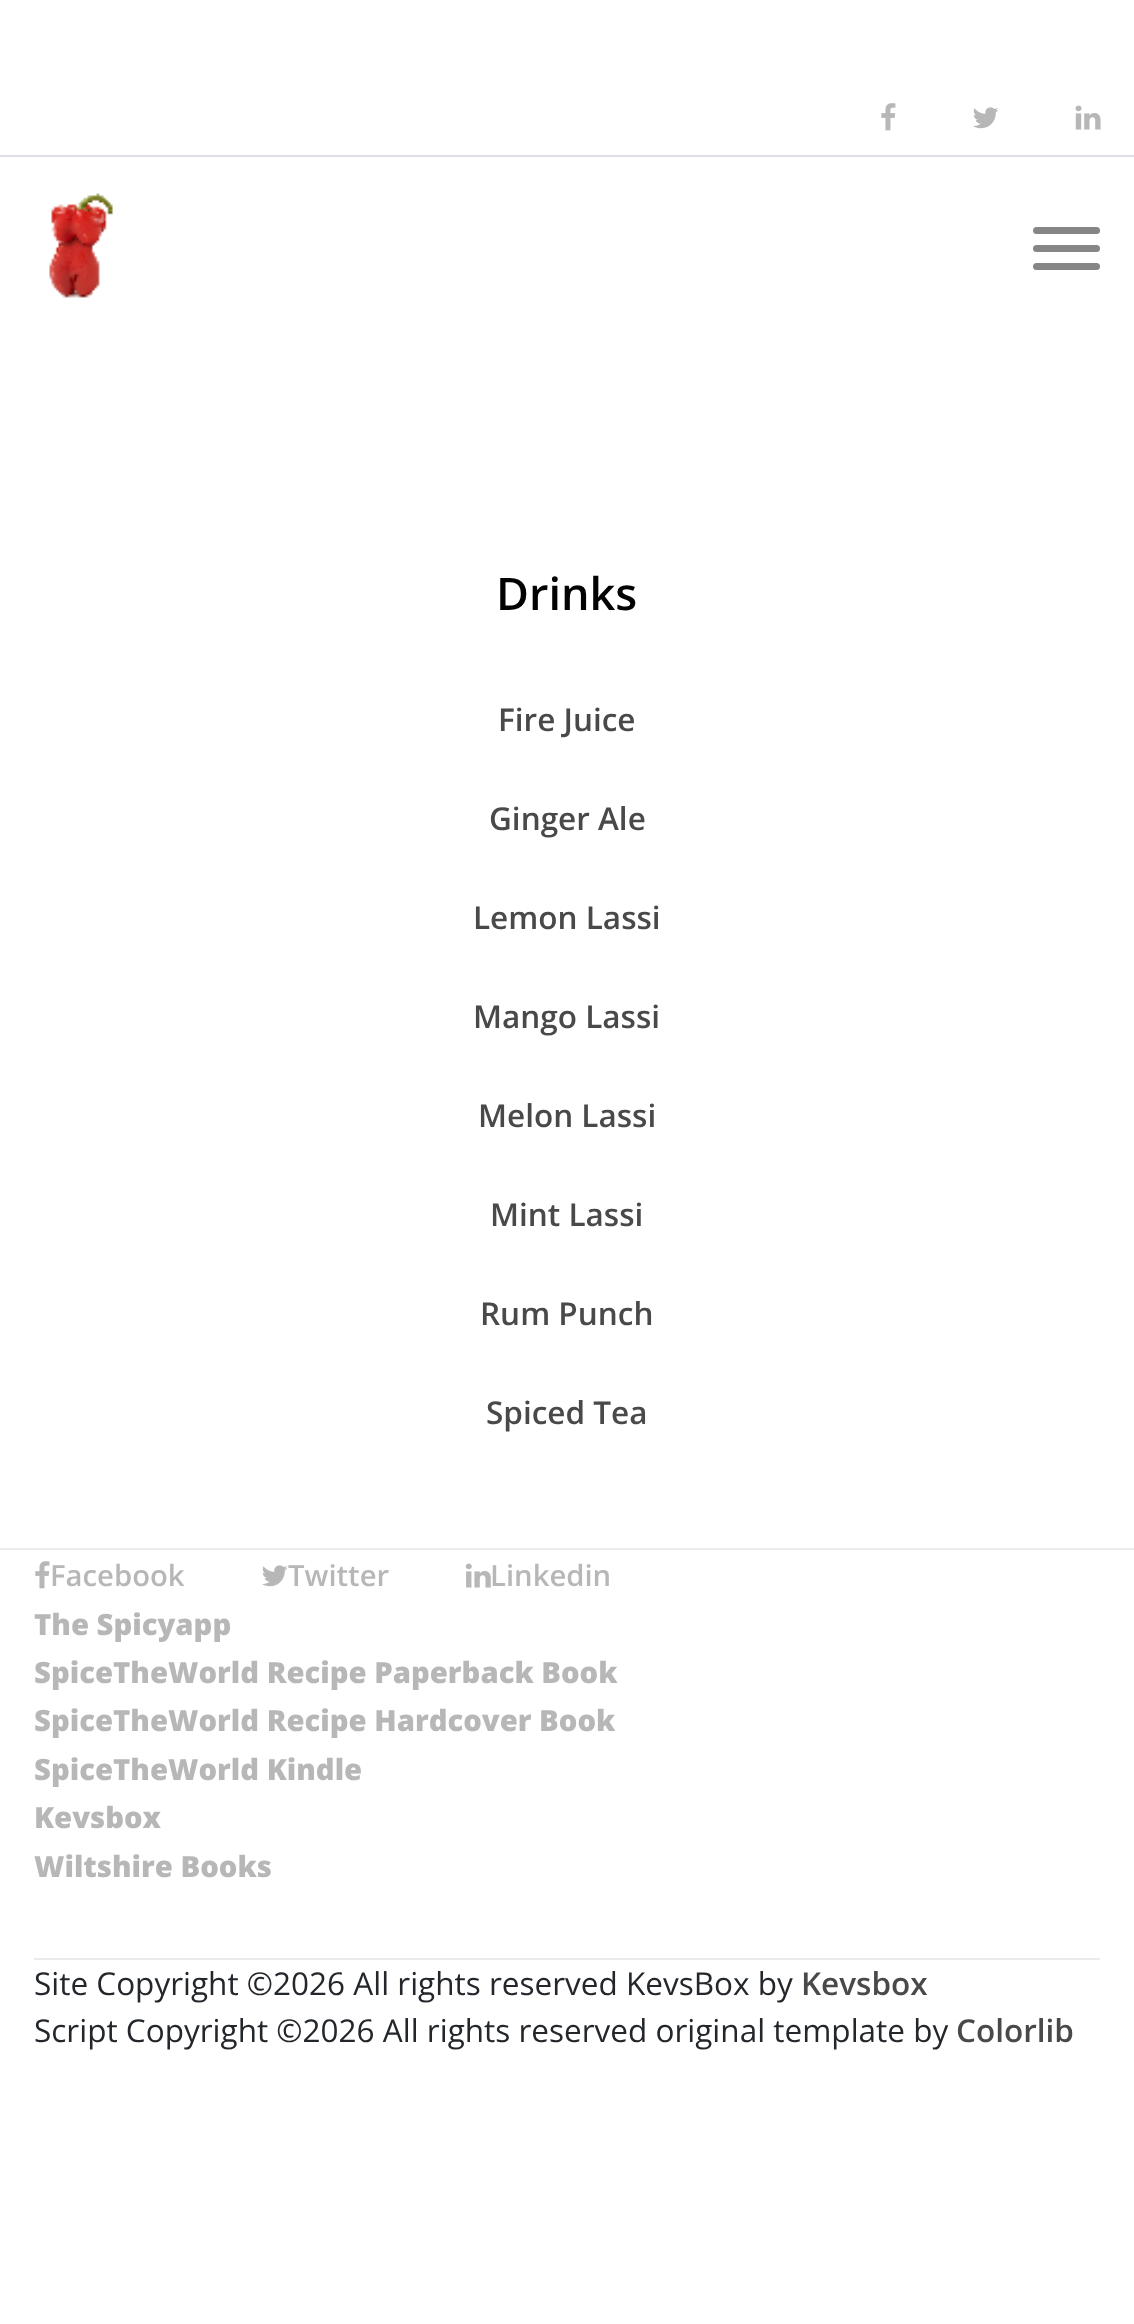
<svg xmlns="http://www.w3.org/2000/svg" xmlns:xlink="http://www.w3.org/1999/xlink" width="1134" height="2324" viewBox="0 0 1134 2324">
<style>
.cls-1{font:600 45px Open Sans;fill:#030303}
.cls-2{font:600 31.5px Open Sans;fill:#494949}
.cls-3{font:600 29.25px Open Sans;fill:#b7b7b7}
.cls-4{font:800 29.25px Open Sans;fill:#b7b7b7}
.cls-5{font:31.5px Open Sans;fill:#23272b}
</style>
<rect width="100%" height="100%" fill="#ffffff"/>
<rect fill="#dddee9" x="0" y="155" width="1134" height="2"/>
<image xlink:href="image0.png" x="881" y="103" width="15" height="28"/>
<image xlink:href="image1.png" x="973" y="107" width="26" height="22"/>
<image xlink:href="image2.png" x="1075" y="105" width="26" height="25"/>
<image xlink:href="image3.png" x="49" y="193" width="64" height="105"/>
<rect fill="#868686" x="1033" y="227" width="67" height="7" rx="3.5"/>
<rect fill="#868686" x="1033" y="245" width="67" height="7" rx="3.5"/>
<rect fill="#868686" x="1033" y="263" width="67" height="7" rx="3.5"/>
<rect fill="#ebebeb" x="0" y="1548" width="1134" height="2"/>
<image xlink:href="image0.png" x="35" y="1561" width="15" height="28"/>
<image xlink:href="image1.png" x="262" y="1565" width="26" height="22"/>
<image xlink:href="image4.png" x="465" y="1563" width="26" height="25"/>
<rect fill="#ebebeb" x="34" y="1958" width="1066" height="2"/>
<text class="cls-1" x="496" y="610">Drinks</text>
<text class="cls-2" x="498" y="731">Fire Juice</text>
<text class="cls-2" x="489" y="830">Ginger Ale</text>
<text class="cls-2" x="473" y="929">Lemon Lassi</text>
<text class="cls-2" x="473" y="1028">Mango Lassi</text>
<text class="cls-2" x="478" y="1127">Melon Lassi</text>
<text class="cls-2" x="490" y="1226">Mint Lassi</text>
<text class="cls-2" x="480" y="1325">Rum Punch</text>
<text class="cls-2" x="486" y="1424">Spiced Tea</text>
<text class="cls-3" x="50" y="1586">Facebook</text>
<text class="cls-3" x="288" y="1586">Twitter</text>
<text class="cls-3" x="490" y="1586">Linkedin</text>
<text class="cls-4"><tspan x="34" y="1635">The Spicyapp</tspan><tspan x="34" y="1683">SpiceTheWorld Recipe Paperback Book</tspan><tspan x="34" y="1731">SpiceTheWorld Recipe Hardcover Book</tspan><tspan x="34" y="1780">SpiceTheWorld Kindle</tspan><tspan x="34" y="1828">Kevsbox</tspan><tspan x="34" y="1877">Wiltshire Books</tspan></text>
<text class="cls-5" x="34" y="1995">Site Copyright ©2026 All rights reserved KevsBox by</text>
<text class="cls-2" x="801" y="1995">Kevsbox</text>
<text class="cls-5" x="34" y="2042">Script Copyright ©2026 All rights reserved original template by</text>
<text class="cls-2" x="956" y="2042">Colorlib</text>
</svg>
